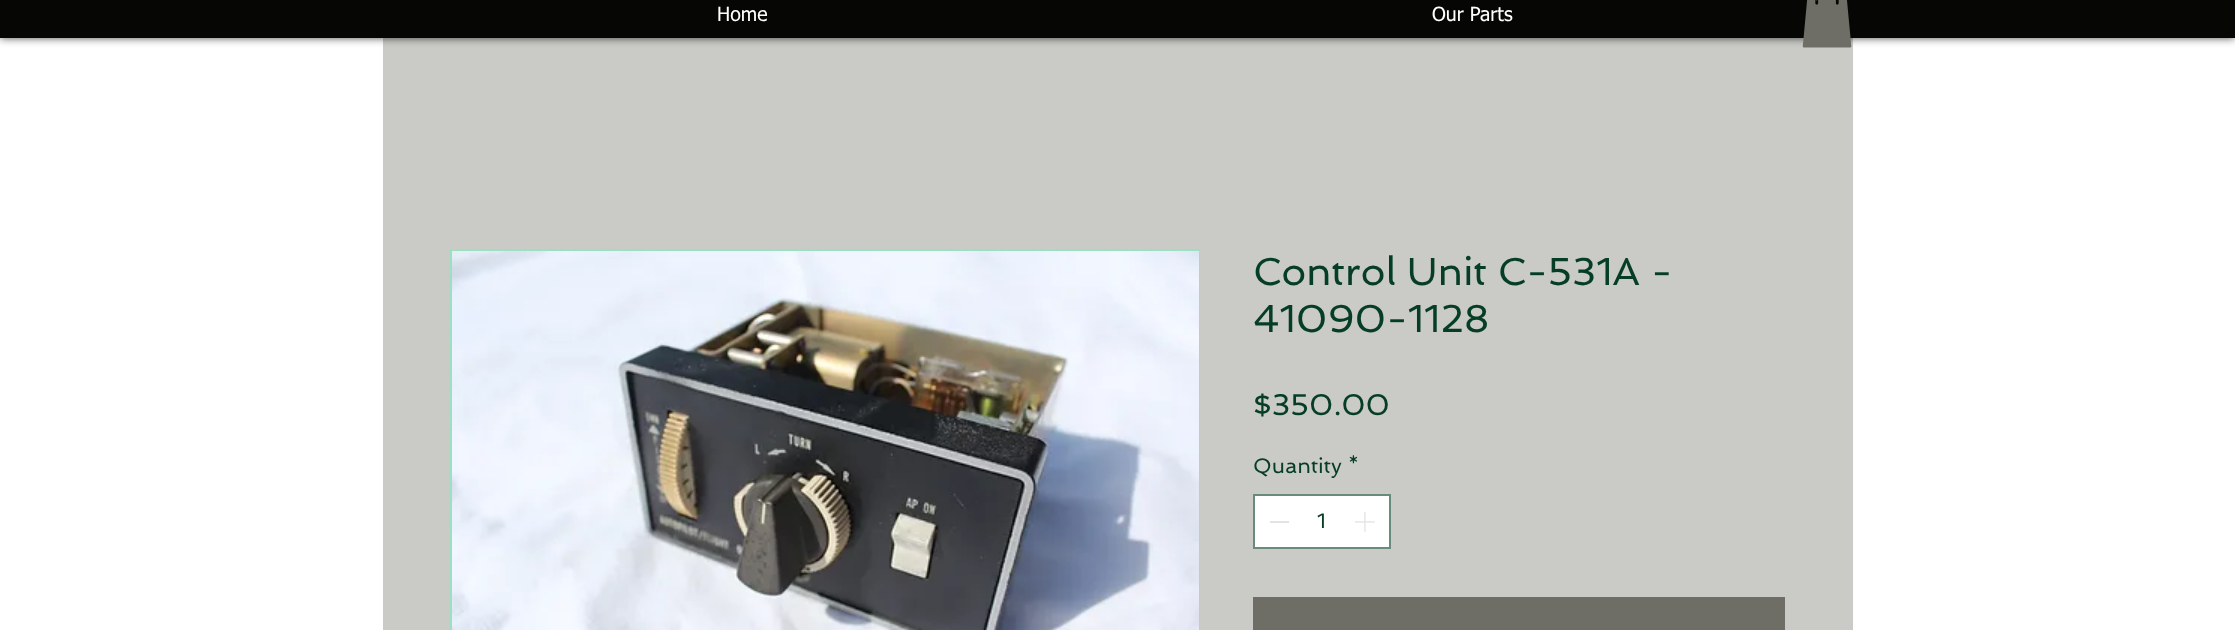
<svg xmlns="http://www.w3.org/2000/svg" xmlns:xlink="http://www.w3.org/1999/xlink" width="2235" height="630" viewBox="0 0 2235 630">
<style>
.cls-1{font:19.5px tahoma;fill:#ffffff}
.cls-2{font:39px Spinnaker;fill:#053e25}
.cls-3{font:30px Spinnaker;fill:#053e25}
.cls-4{font:21px Spinnaker;fill:#053e25}
</style>
<rect width="100%" height="100%" fill="#ffffff"/>
<rect fill="#cacac7" x="383" y="38" width="1470" height="592"/>
<rect fill="#000000" fill-opacity="0.7" filter="blur(4px)" x="0" y="0" width="2235" height="38"/>
<rect fill="#060605" x="0" y="0" width="2235" height="38"/>
<image xlink:href="image0.png" x="1802" y="0" width="50" height="48"/>
<rect fill="none" stroke="#9be0c3" stroke-width="2" x="451" y="250" width="748" height="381"/>
<image xlink:href="image1.png" x="452" y="251" width="747" height="379"/>
<rect fill="#ffffff" stroke="#698b7c" stroke-width="2" x="1254" y="495" width="136" height="53"/>
<rect fill="#e3e3e3" x="1270" y="521" width="19" height="2"/>
<image xlink:href="image2.png" x="1355" y="512" width="20" height="20"/>
<rect fill="#6e6e67" x="1253" y="597" width="532" height="33"/>
<text class="cls-1" x="717" y="21">Home</text>
<text class="cls-1" x="1432" y="21">Our Parts</text>
<text class="cls-2"><tspan x="1253" y="285">Control Unit C-531A -</tspan><tspan x="1253" y="332">41090-1128</tspan></text>
<text class="cls-3" x="1253" y="415">$350.00</text>
<text class="cls-4" x="1253" y="473">Quantity *</text>
<text class="cls-4" x="1317" y="528">1</text>
</svg>
